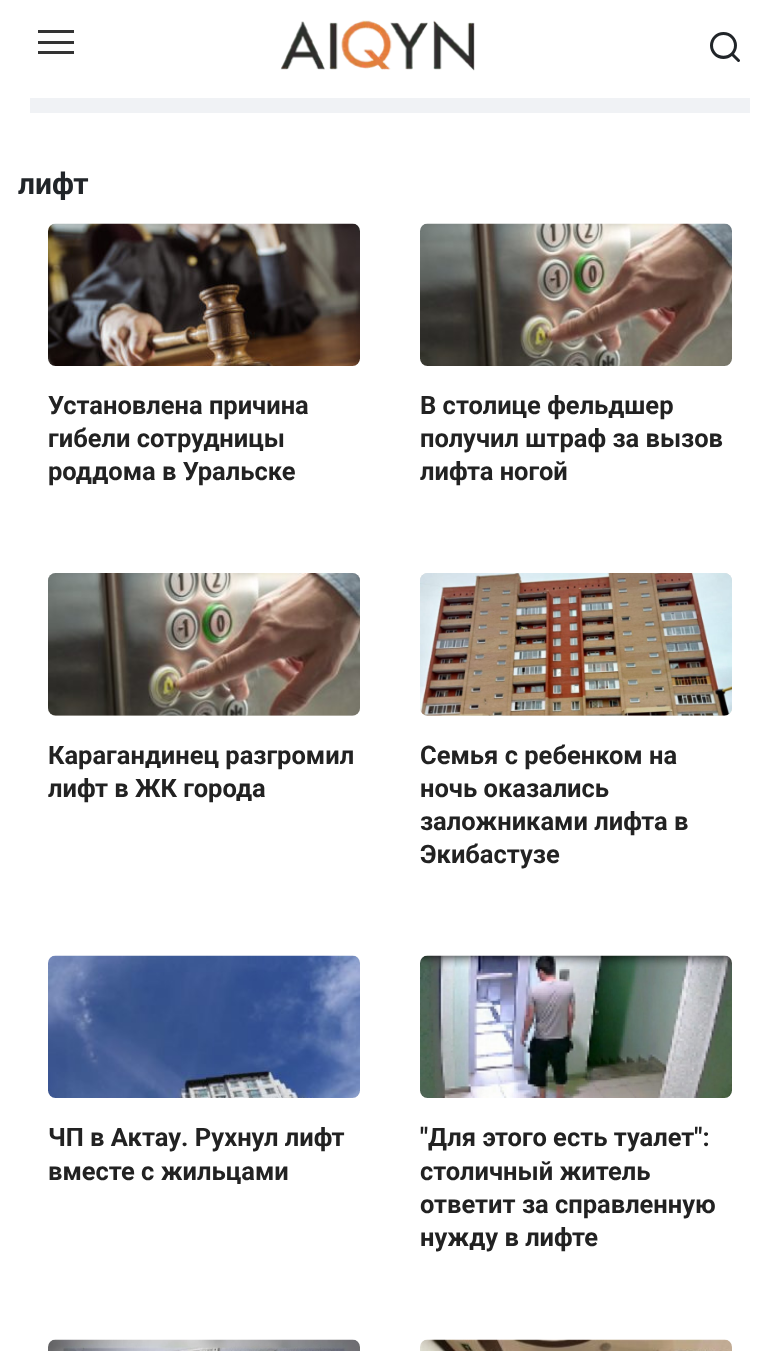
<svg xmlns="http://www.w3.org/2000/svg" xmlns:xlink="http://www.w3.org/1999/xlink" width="779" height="1351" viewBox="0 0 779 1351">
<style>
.cls-1{font:36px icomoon;fill:#212529}
.cls-2{font:bold 30px Roboto;fill:#212529}
.cls-3{font:bold 25.5px Roboto;fill:#222222}
</style>
<rect width="100%" height="100%" fill="#ffffff"/>
<rect fill="#333333" x="38" y="30" width="36" height="3"/>
<rect fill="#333333" x="38" y="41" width="36" height="3"/>
<rect fill="#333333" x="38" y="51" width="36" height="3"/>
<image xlink:href="image0.png" x="280" y="20" width="195" height="51"/>
<rect fill="#f0f2f5" x="30" y="98" width="720" height="15"/>
<image xlink:href="image1.png" x="48" y="223" width="312" height="143"/>
<image xlink:href="image2.png" x="420" y="223" width="312" height="143"/>
<rect fill="#dbd9d5" x="48" y="573" width="312" height="143" rx="8"/>
<image xlink:href="image3.png" x="48" y="573" width="312" height="143"/>
<rect fill="#dbd9d5" x="420" y="573" width="312" height="143" rx="8"/>
<image xlink:href="image4.png" x="420" y="573" width="312" height="143"/>
<image xlink:href="image5.png" x="48" y="955" width="312" height="143"/>
<image xlink:href="image6.png" x="420" y="955" width="312" height="143"/>
<image xlink:href="image7.png" x="48" y="1339" width="312" height="12"/>
<image xlink:href="image8.png" x="420" y="1339" width="312" height="12"/>
<text class="cls-1" x="707" y="62">🔍</text>
<text class="cls-2" x="18" y="194">лифт</text>
<text class="cls-3"><tspan x="48" y="414">Установлена причина</tspan><tspan x="48" y="447">гибели сотрудницы</tspan><tspan x="48" y="480">роддома в Уральске</tspan></text>
<text class="cls-3"><tspan x="420" y="414">В столице фельдшер</tspan><tspan x="420" y="447">получил штраф за вызов</tspan><tspan x="420" y="480">лифта ногой</tspan></text>
<text class="cls-3"><tspan x="48" y="764">Карагандинец разгромил</tspan><tspan x="48" y="797">лифт в ЖК города</tspan></text>
<text class="cls-3"><tspan x="420" y="764">Семья с ребенком на</tspan><tspan x="420" y="797">ночь оказались</tspan><tspan x="420" y="830">заложниками лифта в</tspan><tspan x="420" y="863">Экибастузе</tspan></text>
<text class="cls-3"><tspan x="48" y="1146">ЧП в Актау. Рухнул лифт</tspan><tspan x="48" y="1180">вместе с жильцами</tspan></text>
<text class="cls-3"><tspan x="420" y="1146">"Для этого есть туалет":</tspan><tspan x="420" y="1180">столичный житель</tspan><tspan x="420" y="1213">ответит за справленную</tspan><tspan x="420" y="1246">нужду в лифте</tspan></text>
</svg>
